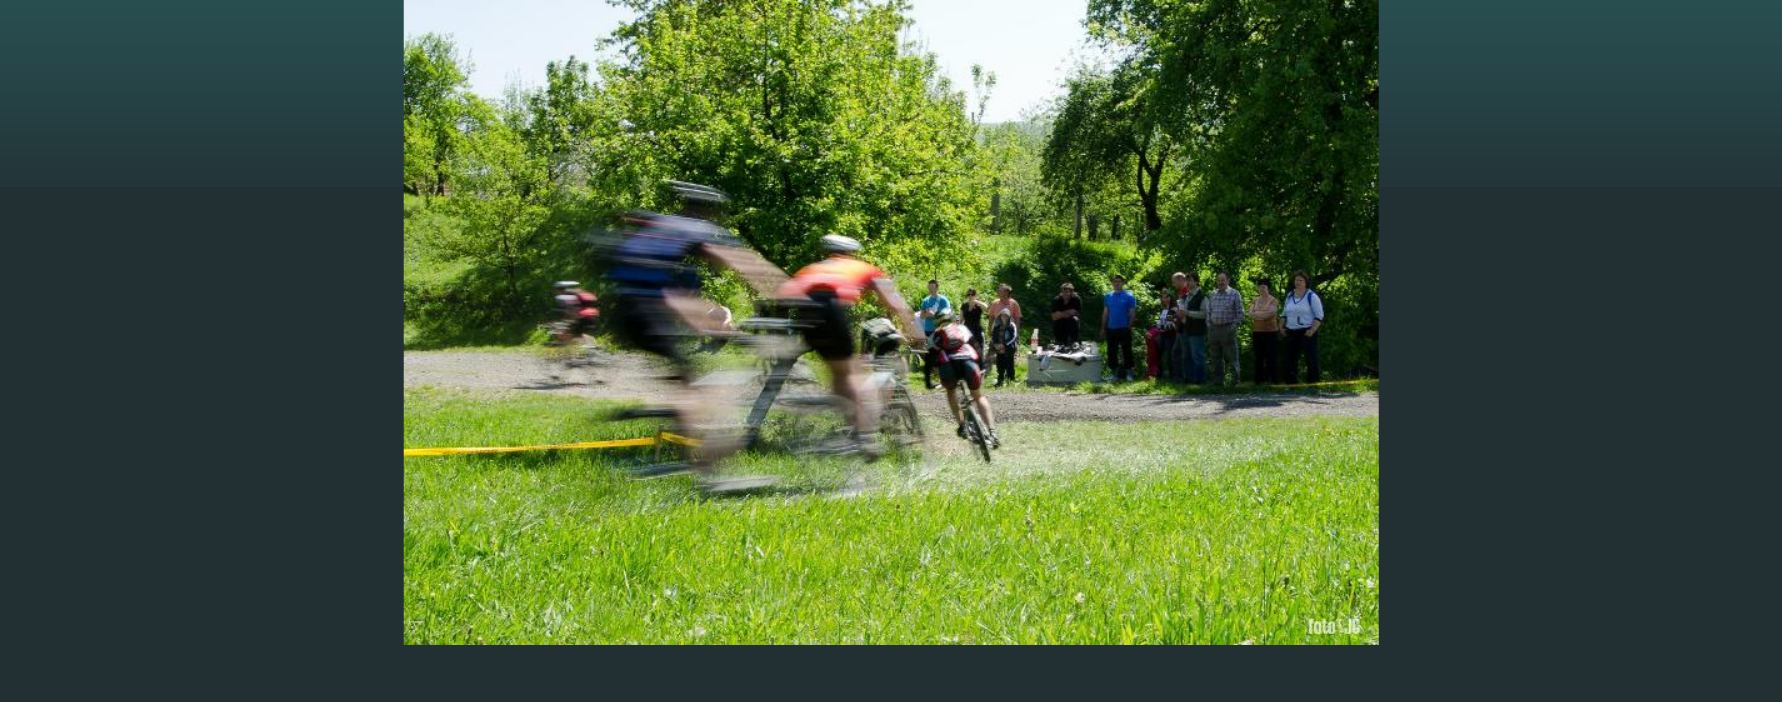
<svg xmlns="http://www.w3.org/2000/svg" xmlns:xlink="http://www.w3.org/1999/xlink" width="1782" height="702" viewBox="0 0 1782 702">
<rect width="100%" height="100%" fill="#223034"/>
<image xlink:href="image0.png" x="0" y="0" width="1782" height="187"/>
<image xlink:href="image1.png" x="403" y="0" width="976" height="645"/>
</svg>
